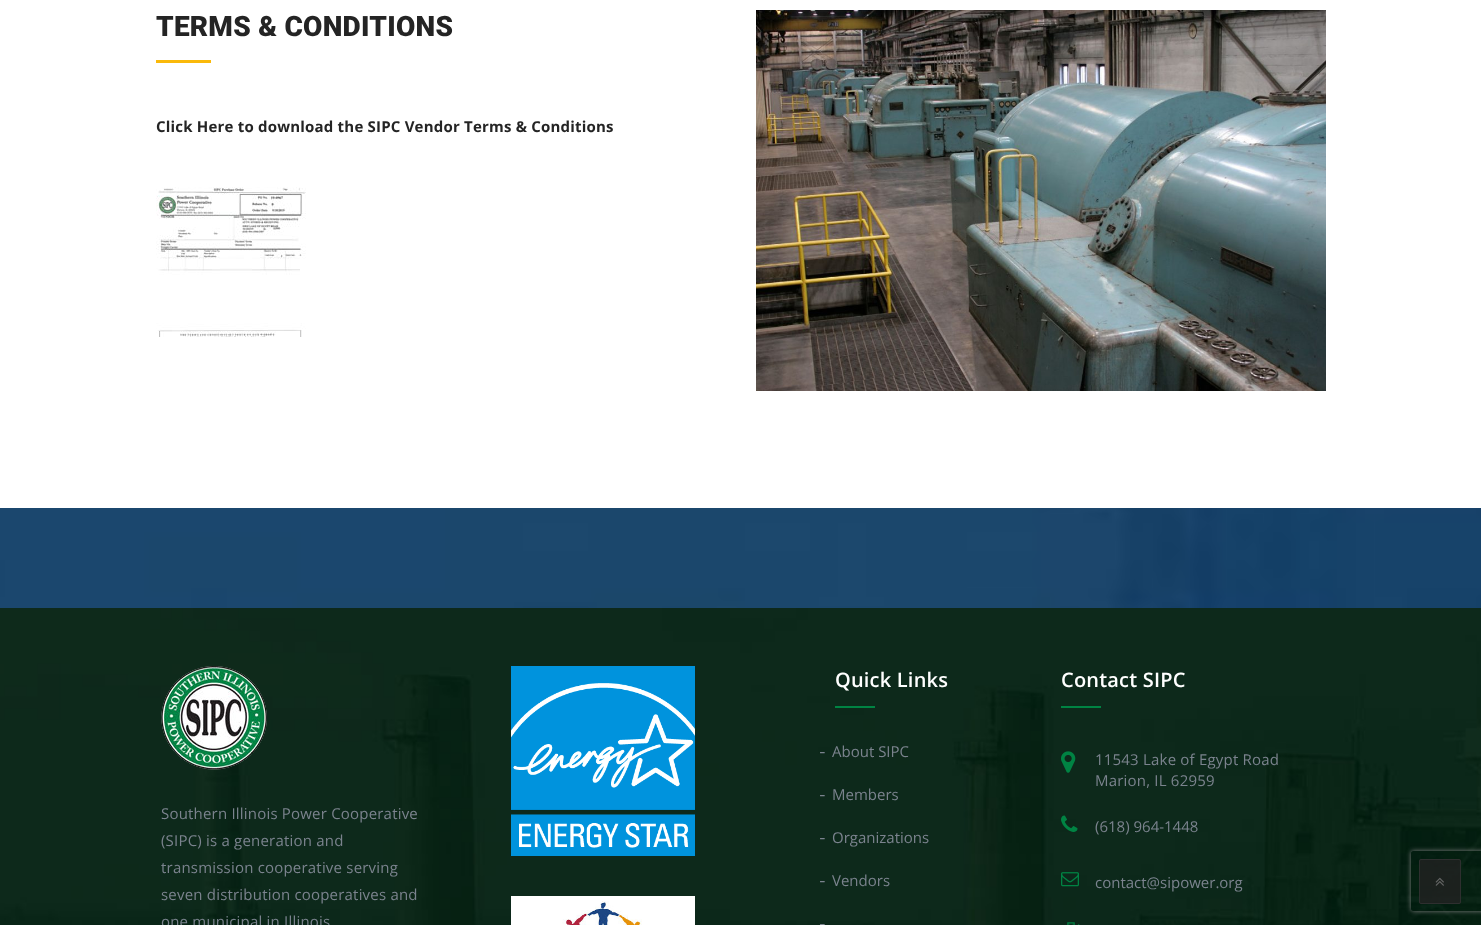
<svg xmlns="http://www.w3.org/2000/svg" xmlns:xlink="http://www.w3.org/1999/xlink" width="1481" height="925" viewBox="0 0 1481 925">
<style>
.cls-1{font:900 28px Roboto;letter-spacing:0.25px;fill:#242424}
.cls-2{font:bold 15px Open Sans;letter-spacing:0.2px;fill:#242424}
.cls-3{font:15px Open Sans;letter-spacing:0.2px;fill:#7b838e}
.cls-4{font:600 20px Open Sans;letter-spacing:0.2px;fill:#ffffff}
.cls-5{font:15px Open Sans;fill:#7b838e}
</style>
<defs>
<clipPath id="clip1"><path d="M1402 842H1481V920H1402ZM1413 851H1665C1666 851 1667 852 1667 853V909C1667 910 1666 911 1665 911H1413C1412 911 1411 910 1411 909V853C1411 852 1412 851 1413 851Z" clip-rule="evenodd"/></clipPath>
</defs>
<rect width="100%" height="100%" fill="#ffffff"/>
<rect fill="#fab90a" x="156" y="60" width="55" height="3"/>
<image xlink:href="image0.png" x="156" y="187" width="150" height="150"/>
<image xlink:href="image1.png" x="756" y="10" width="570" height="381"/>
<image xlink:href="image2.png" x="0" y="508" width="1481" height="100"/>
<image xlink:href="image3.png" x="0" y="608" width="1481" height="317"/>
<image xlink:href="image4.png" x="161" y="666" width="106" height="104"/>
<image xlink:href="image5.png" x="511" y="666" width="184" height="190"/>
<image xlink:href="image6.png" x="511" y="896" width="184" height="29"/>
<rect fill="#008343" x="835" y="706" width="40" height="2"/>
<image xlink:href="image7.png" x="820" y="752" width="5" height="2"/>
<image xlink:href="image8.png" x="820" y="795" width="5" height="2"/>
<image xlink:href="image8.png" x="820" y="838" width="5" height="2"/>
<image xlink:href="image8.png" x="820" y="881" width="5" height="2"/>
<image xlink:href="image9.png" x="820" y="924" width="5" height="1"/>
<rect fill="#008343" x="1061" y="706" width="40" height="2"/>
<image xlink:href="image10.png" x="1061" y="751" width="15" height="22"/>
<image xlink:href="image11.png" x="1061" y="815" width="17" height="17"/>
<image xlink:href="image12.png" x="1061" y="872" width="18" height="15"/>
<image xlink:href="image13.png" x="1067" y="922" width="13" height="3"/>
<g clip-path="url(#clip1)">
<rect fill="#808080" filter="blur(2.5px)" x="1411" y="851" width="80" height="60" rx="2"/>
</g>
<rect fill="#222222" fill-opacity="0.8" x="1419" y="859" width="42" height="45" rx="2"/>
<rect fill="none" stroke="#333333" stroke-opacity="0.8" x="1419.5" y="859.5" width="41" height="44" rx="1.5"/>
<image xlink:href="image14.png" x="1435" y="877" width="9" height="9"/>
<text class="cls-1" x="156" y="36">TERMS &amp; CONDITIONS</text>
<text class="cls-2" x="156" y="132">Click Here to download the SIPC Vendor Terms &amp; Conditions</text>
<text class="cls-3"><tspan x="161" y="819">Southern Illinois Power Cooperative</tspan><tspan x="161" y="846">(SIPC) is a generation and</tspan><tspan x="161" y="873">transmission cooperative serving</tspan><tspan x="161" y="900">seven distribution cooperatives and</tspan><tspan x="161" y="927">one municipal in Illinois</tspan></text>
<text class="cls-4" x="835" y="687">Quick Links</text>
<text class="cls-5" x="832" y="757">About SIPC</text>
<text class="cls-5" x="832" y="800">Members</text>
<text class="cls-5" x="832" y="843">Organizations</text>
<text class="cls-5" x="832" y="886">Vendors</text>
<text class="cls-4" x="1061" y="687">Contact SIPC</text>
<text class="cls-3"><tspan x="1095" y="765">11543 Lake of Egypt Road</tspan><tspan x="1095" y="786">Marion, IL 62959</tspan></text>
<text class="cls-5" x="1095" y="832">(618) 964-1448</text>
<text class="cls-5" x="1095" y="888">contact@sipower.org</text>
</svg>
